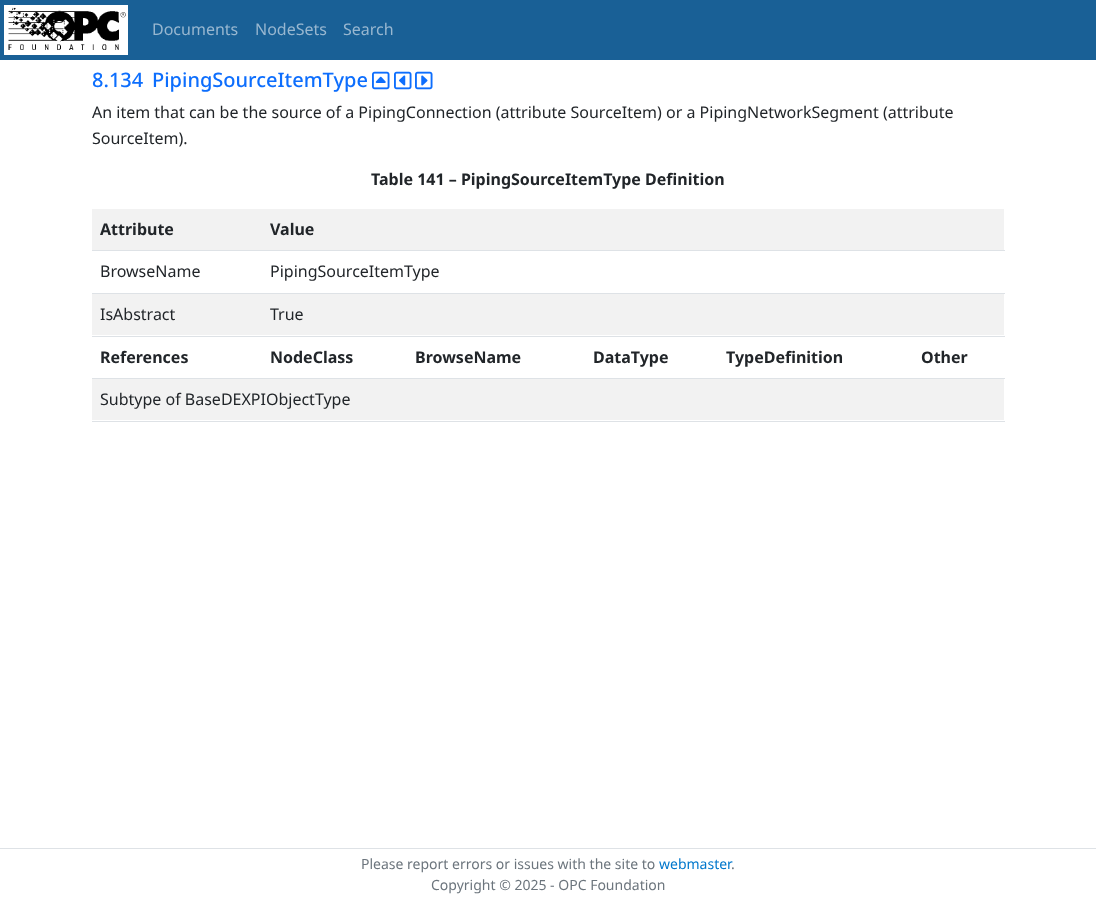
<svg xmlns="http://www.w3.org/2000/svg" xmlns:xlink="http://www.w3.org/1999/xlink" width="1096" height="899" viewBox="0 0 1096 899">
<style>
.cls-1{font:16px Noto Sans;fill:#98b7d0}
.cls-2{font:500 20px Noto Sans;fill:#0d6efd}
.cls-3{font:16px Noto Sans;fill:#212529}
.cls-4{font:bold 16px Noto Sans;fill:#212529}
.cls-5{font:14px Noto Sans;fill:#6c757d}
.cls-6{font:14px Noto Sans;fill:#0077cc}
</style>
<rect width="100%" height="100%" fill="#ffffff"/>
<rect fill="#196096" x="0" y="0" width="1096" height="60"/>
<image xlink:href="image0.png" x="4" y="5" width="124" height="50"/>
<image xlink:href="image1.png" x="372" y="71" width="18" height="19"/>
<image xlink:href="image2.png" x="394" y="71" width="18" height="19"/>
<image xlink:href="image3.png" x="415" y="71" width="18" height="19"/>
<rect fill="#f2f2f2" x="92" y="209" width="912" height="41"/>
<rect fill="#dee2e6" x="92" y="250" width="913" height="1"/>
<rect fill="#dee2e6" x="92" y="293" width="913" height="1"/>
<rect fill="#f2f2f2" x="92" y="294" width="912" height="41"/>
<rect fill="#dee2e6" x="92" y="336" width="913" height="1"/>
<rect fill="#dee2e6" x="92" y="378" width="913" height="1"/>
<rect fill="#f2f2f2" x="92" y="379" width="912" height="41"/>
<rect fill="#dee2e6" x="92" y="421" width="913" height="1"/>
<rect fill="#dee2e6" x="0" y="848" width="1096" height="1"/>
<text class="cls-1" x="152" y="35">Documents</text>
<text class="cls-1" x="255" y="35">NodeSets</text>
<text class="cls-1" x="343" y="35">Search</text>
<text class="cls-2" x="92" y="87">8.134</text>
<text class="cls-2" x="152" y="87">PipingSourceItemType</text>
<text class="cls-3"><tspan x="92" y="118">An item that can be the source of a PipingConnection (attribute SourceItem) or a PipingNetworkSegment (attribute</tspan><tspan x="92" y="144">SourceItem).</tspan></text>
<text class="cls-4" x="371" y="185">Table 141 – PipingSourceItemType Definition</text>
<text class="cls-4" x="100" y="235">Attribute</text>
<text class="cls-4" x="270" y="235">Value</text>
<text class="cls-3" x="100" y="277">BrowseName</text>
<text class="cls-3" x="270" y="277">PipingSourceItemType</text>
<text class="cls-3" x="100" y="320">IsAbstract</text>
<text class="cls-3" x="270" y="320">True</text>
<text class="cls-4" x="100" y="363">References</text>
<text class="cls-4" x="270" y="363">NodeClass</text>
<text class="cls-4" x="415" y="363">BrowseName</text>
<text class="cls-4" x="593" y="363">DataType</text>
<text class="cls-4" x="726" y="363">TypeDefinition</text>
<text class="cls-4" x="921" y="363">Other</text>
<text class="cls-3" x="100" y="405">Subtype of BaseDEXPIObjectType</text>
<text class="cls-5" x="361" y="869">Please report errors or issues with the site to</text>
<text class="cls-6" x="659" y="869">webmaster</text>
<text class="cls-5" x="731" y="869">.</text>
<text class="cls-5" x="431" y="890">Copyright © 2025 - OPC Foundation</text>
</svg>
